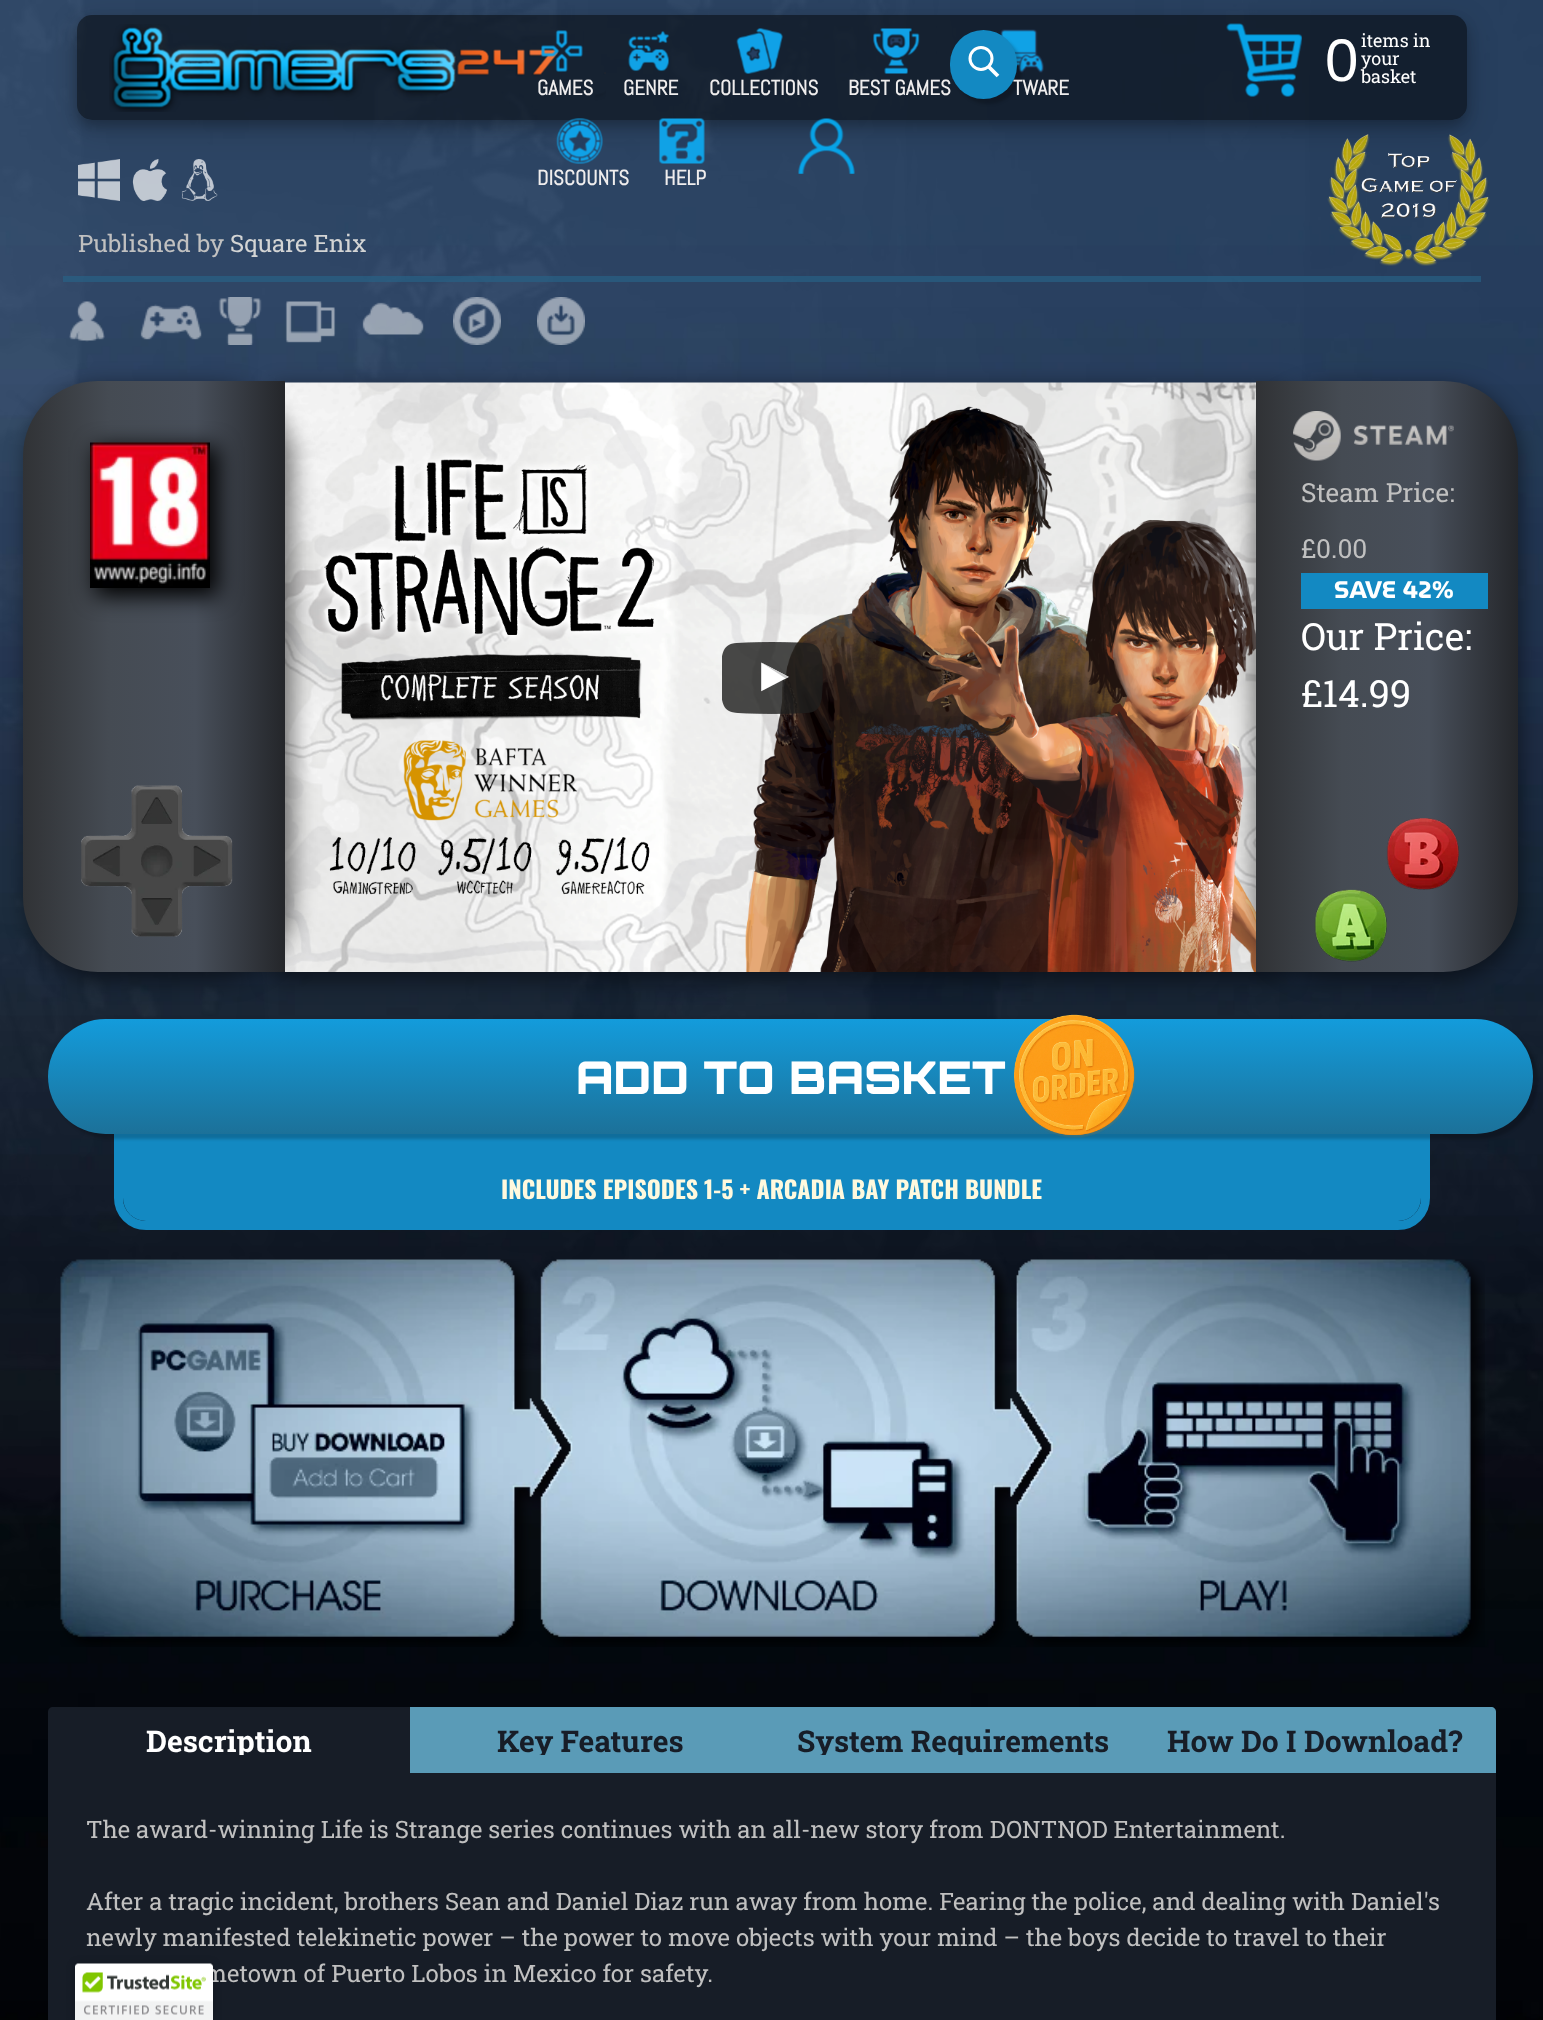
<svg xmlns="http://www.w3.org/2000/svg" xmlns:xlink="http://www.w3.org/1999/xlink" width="1543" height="2020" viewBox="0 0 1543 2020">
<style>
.cls-1{font:60px Liberation Sans;fill:#ffffff}
.cls-2{font:18px Roboto Slab;fill:#ffffff}
.cls-3{font:bold 21px Abel;fill:#efeded}
.cls-4{font:24px Roboto Slab;fill:#c0c0c0}
.cls-5{font:24px Roboto Slab;fill:#d3d4d4}
.cls-6{font:26.25px Roboto Slab;fill:#c0c0c0}
.cls-7{font:bold 24px MuseoModerno;fill:#ffffff}
.cls-8{font:37.5px Roboto Slab;fill:#ffffff}
.cls-9{font:900 45px Orbitron;fill:#ffffff}
.cls-10{font:bold 24px Oswald;fill:#fff9de}
.cls-11{font:bold 30px Roboto Slab;fill:#ffffff}
.cls-12{font:bold 30px Roboto Slab;fill:#171d27}
</style>
<defs>
<clipPath id="clip1"><path d="M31 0H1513V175H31ZM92 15H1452C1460.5 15 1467 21.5 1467 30V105C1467 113.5 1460.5 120 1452 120H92C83.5 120 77 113.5 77 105V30C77 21.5 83.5 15 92 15Z" clip-rule="evenodd"/></clipPath>
<clipPath id="clip2"><path d="M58 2H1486V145H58ZM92 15H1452C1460.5 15 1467 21.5 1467 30V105C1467 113.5 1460.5 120 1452 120H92C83.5 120 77 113.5 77 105V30C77 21.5 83.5 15 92 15Z" clip-rule="evenodd"/></clipPath>
<linearGradient id="g1" gradientUnits="userSpaceOnUse" x1="22" y1="677" x2="285" y2="677"><stop offset="0" stop-color="#303235"/><stop offset="0.33" stop-color="#454b53"/><stop offset="0.66" stop-color="#484f5a"/><stop offset="1" stop-color="#24262a"/></linearGradient>
<linearGradient id="g2" gradientUnits="userSpaceOnUse" x1="1256" y1="677" x2="1518" y2="677"><stop offset="0" stop-color="#303235"/><stop offset="0.33" stop-color="#454b53"/><stop offset="0.66" stop-color="#484f5a"/><stop offset="1" stop-color="#24262a"/></linearGradient>
<linearGradient id="g3" gradientUnits="userSpaceOnUse" x1="791" y1="1018" x2="791" y2="1134"><stop offset="0" stop-color="#139cdc"/><stop offset="1" stop-color="#1c7199"/></linearGradient>
<clipPath id="clip3"><rect x="50" y="1725" width="358" height="30"/></clipPath>
<clipPath id="clip4"><rect x="411" y="1725" width="360" height="30"/></clipPath>
<clipPath id="clip5"><rect x="774" y="1725" width="359" height="30"/></clipPath>
</defs>
<rect width="100%" height="100%" fill="#ffffff"/>
<image xlink:href="image0.png" x="0" y="0" width="1543" height="2020"/>
<image xlink:href="image11.png" x="0" y="0" width="1543" height="1609"/>
<image xlink:href="image12.png" x="78" y="159" width="42" height="42"/>
<image xlink:href="image13.png" x="132" y="159" width="35" height="42"/>
<image xlink:href="image14.png" x="181" y="159" width="37" height="42"/>
<image xlink:href="image25.png" x="1327" y="134" width="163" height="132"/>
<g clip-path="url(#clip1)">
<rect fill="#000000" fill-opacity="0.19" filter="blur(15px)" x="77" y="24" width="1390" height="105" rx="15"/>
</g>
<g clip-path="url(#clip2)">
<rect fill="#000000" fill-opacity="0.2" filter="blur(6px)" x="77" y="21" width="1390" height="105" rx="15"/>
</g>
<rect fill="#000000" fill-opacity="0.5" x="77" y="15" width="1390" height="105" rx="15"/>
<image xlink:href="image7.png" x="1000" y="29" width="44" height="44"/>
<rect fill="#000000" fill-opacity="0.2" filter="blur(1.5px)" x="954" y="35" width="68" height="69" rx="34"/>
<image xlink:href="image1.png" x="109" y="24" width="497" height="88"/>
<image xlink:href="image2.png" x="1226" y="23" width="76" height="74"/>
<image xlink:href="image3.png" x="541" y="30" width="42" height="42"/>
<image xlink:href="image4.png" x="628" y="31" width="41" height="41"/>
<image xlink:href="image5.png" x="736" y="28" width="47" height="46"/>
<image xlink:href="image6.png" x="873" y="28" width="47" height="46"/>
<image xlink:href="image8.png" x="798" y="118" width="57" height="56"/>
<image xlink:href="image9.png" x="556" y="118" width="47" height="46"/>
<image xlink:href="image10.png" x="658" y="118" width="47" height="46"/>
<rect fill="#286387" fill-opacity="0.66" x="63" y="276" width="1418" height="6"/>
<image xlink:href="image15.png" x="69" y="301" width="36" height="41"/>
<image xlink:href="image16.png" x="140" y="304" width="62" height="36"/>
<image xlink:href="image17.png" x="218" y="297" width="44" height="48"/>
<image xlink:href="image18.png" x="285" y="301" width="51" height="42"/>
<image xlink:href="image19.png" x="362" y="302" width="62" height="33"/>
<image xlink:href="image20.png" x="453" y="297" width="48" height="48"/>
<image xlink:href="image21.png" x="537" y="297" width="48" height="48"/>
<rect fill="#000000" fill-opacity="0.5" filter="blur(11px)" x="272" y="387" width="1015" height="593"/>
<image xlink:href="image22.png" x="285" y="382" width="971" height="590"/>
<rect fill="#000000" fill-opacity="0.5" filter="blur(11px)" x="27" y="386" width="266" height="594" rx="77"/>
<path fill="url(#g1)" d="M98 381H285V972H98C56.5 972 23 938.5 23 897V456C23 414.5 56.5 381 98 381Z"/>
<image xlink:href="image23.png" x="722" y="642" width="101" height="72"/>
<rect fill="#000000" fill-opacity="0.5" filter="blur(11px)" x="1254" y="386" width="266" height="594" rx="77"/>
<path fill="url(#g2)" d="M1256 381H1443C1484.5 381 1518 414.5 1518 456V897C1518 938.5 1484.5 972 1443 972H1256Z"/>
<image xlink:href="image24.png" x="1293" y="411" width="161" height="50"/>
<rect fill="#1389c2" x="1301" y="573" width="187" height="36"/>
<rect fill="#000000" filter="blur(11px)" x="95" y="447" width="123" height="149"/>
<image xlink:href="image26.png" x="90" y="442" width="120" height="146"/>
<image xlink:href="image27.png" x="81" y="785" width="152" height="152"/>
<image xlink:href="image28.png" x="1314" y="818" width="145" height="144"/>
<rect fill="#1389c2" x="123" y="1055" width="1298" height="166" rx="23"/>
<rect fill="none" stroke="#1389c2" stroke-width="9" x="118.5" y="1050.5" width="1307" height="175" rx="27.5"/>
<rect fill="#000000" fill-opacity="0.2" filter="blur(1.5px)" x="53" y="1023" width="1485" height="116" rx="58"/>
<rect fill="url(#g3)" x="48" y="1019" width="1485" height="115" rx="57.5"/>
<image xlink:href="image29.png" x="1014" y="1014" width="122" height="124"/>
<image xlink:href="image30.png" x="60" y="1259" width="1425" height="388"/>
<path fill="#171d27" d="M53 1707H410V1773H48V1712C48 1709 50 1707 53 1707Z"/>
<rect fill="#5a9bb7" x="410" y="1707" width="724" height="66"/>
<path fill="#5a9bb7" d="M1134 1707H1491C1494 1707 1496 1709 1496 1712V1773H1134Z"/>
<rect fill="#171d27" x="48" y="1773" width="1448" height="247"/>
<rect fill="#000000" fill-opacity="0.2" filter="blur(4px)" x="75" y="1964" width="138" height="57" rx="3"/>
<text class="cls-1" x="1325" y="81">0</text>
<text class="cls-2"><tspan x="1361" y="47">items in</tspan><tspan x="1361" y="65">your</tspan><tspan x="1361" y="83">basket</tspan></text>
<text class="cls-3" x="537" y="95">GAMES</text>
<text class="cls-3" x="623" y="95">GENRE</text>
<text class="cls-3" x="709" y="95">COLLECTIONS</text>
<text class="cls-3" x="848" y="95">BEST GAMES</text>
<text class="cls-3" x="1013" y="95">TWARE</text>
<rect fill="#1389c2" x="950" y="30" width="67" height="69" rx="33.5"/>
<circle fill="none" stroke="#ffffff" stroke-width="3" cx="981" cy="58.5" r="11"/>
<path fill="none" stroke="#ffffff" stroke-width="3.8" d="M989 67L998 76"/>
<text class="cls-3" x="537" y="185">DISCOUNTS</text>
<text class="cls-3" x="664" y="185">HELP</text>
<text class="cls-4" x="78" y="252">Published by</text>
<text class="cls-5" x="230" y="252">Square Enix</text>
<text class="cls-6" x="1301" y="502">Steam Price:</text>
<text class="cls-6" x="1301" y="558">£0.00</text>
<text class="cls-7" x="1334" y="598">SAVE 42%</text>
<text class="cls-8"><tspan x="1301" y="650">Our Price:</tspan><tspan x="1301" y="707">£14.99</tspan></text>
<text class="cls-9" x="576" y="1094">ADD TO BASKET</text>
<text class="cls-10" x="501" y="1199">INCLUDES EPISODES 1-5 + ARCADIA BAY PATCH BUNDLE</text>
<g clip-path="url(#clip3)">
<text class="cls-11" x="146" y="1752">Description</text>
</g>
<g clip-path="url(#clip4)">
<text class="cls-12" x="497" y="1752">Key Features</text>
</g>
<g clip-path="url(#clip5)">
<text class="cls-12" x="797" y="1752">System Requirements</text>
</g>
<text class="cls-12" x="1167" y="1752">How Do I Download?</text>
<text class="cls-4" x="86" y="1838">The award-winning Life is Strange series continues with an all-new story from DONTNOD Entertainment.</text>
<text class="cls-4"><tspan x="86" y="1910">After a tragic incident, brothers Sean and Daniel Diaz run away from home. Fearing the police, and dealing with Daniel's</tspan><tspan x="86" y="1946">newly manifested telekinetic power – the power to move objects with your mind – the boys decide to travel to their</tspan></text>
<text class="cls-4" x="204" y="1982">metown of Puerto Lobos in Mexico for safety.</text>
<image xlink:href="image31.png" x="75" y="1963" width="138" height="57"/>
</svg>
